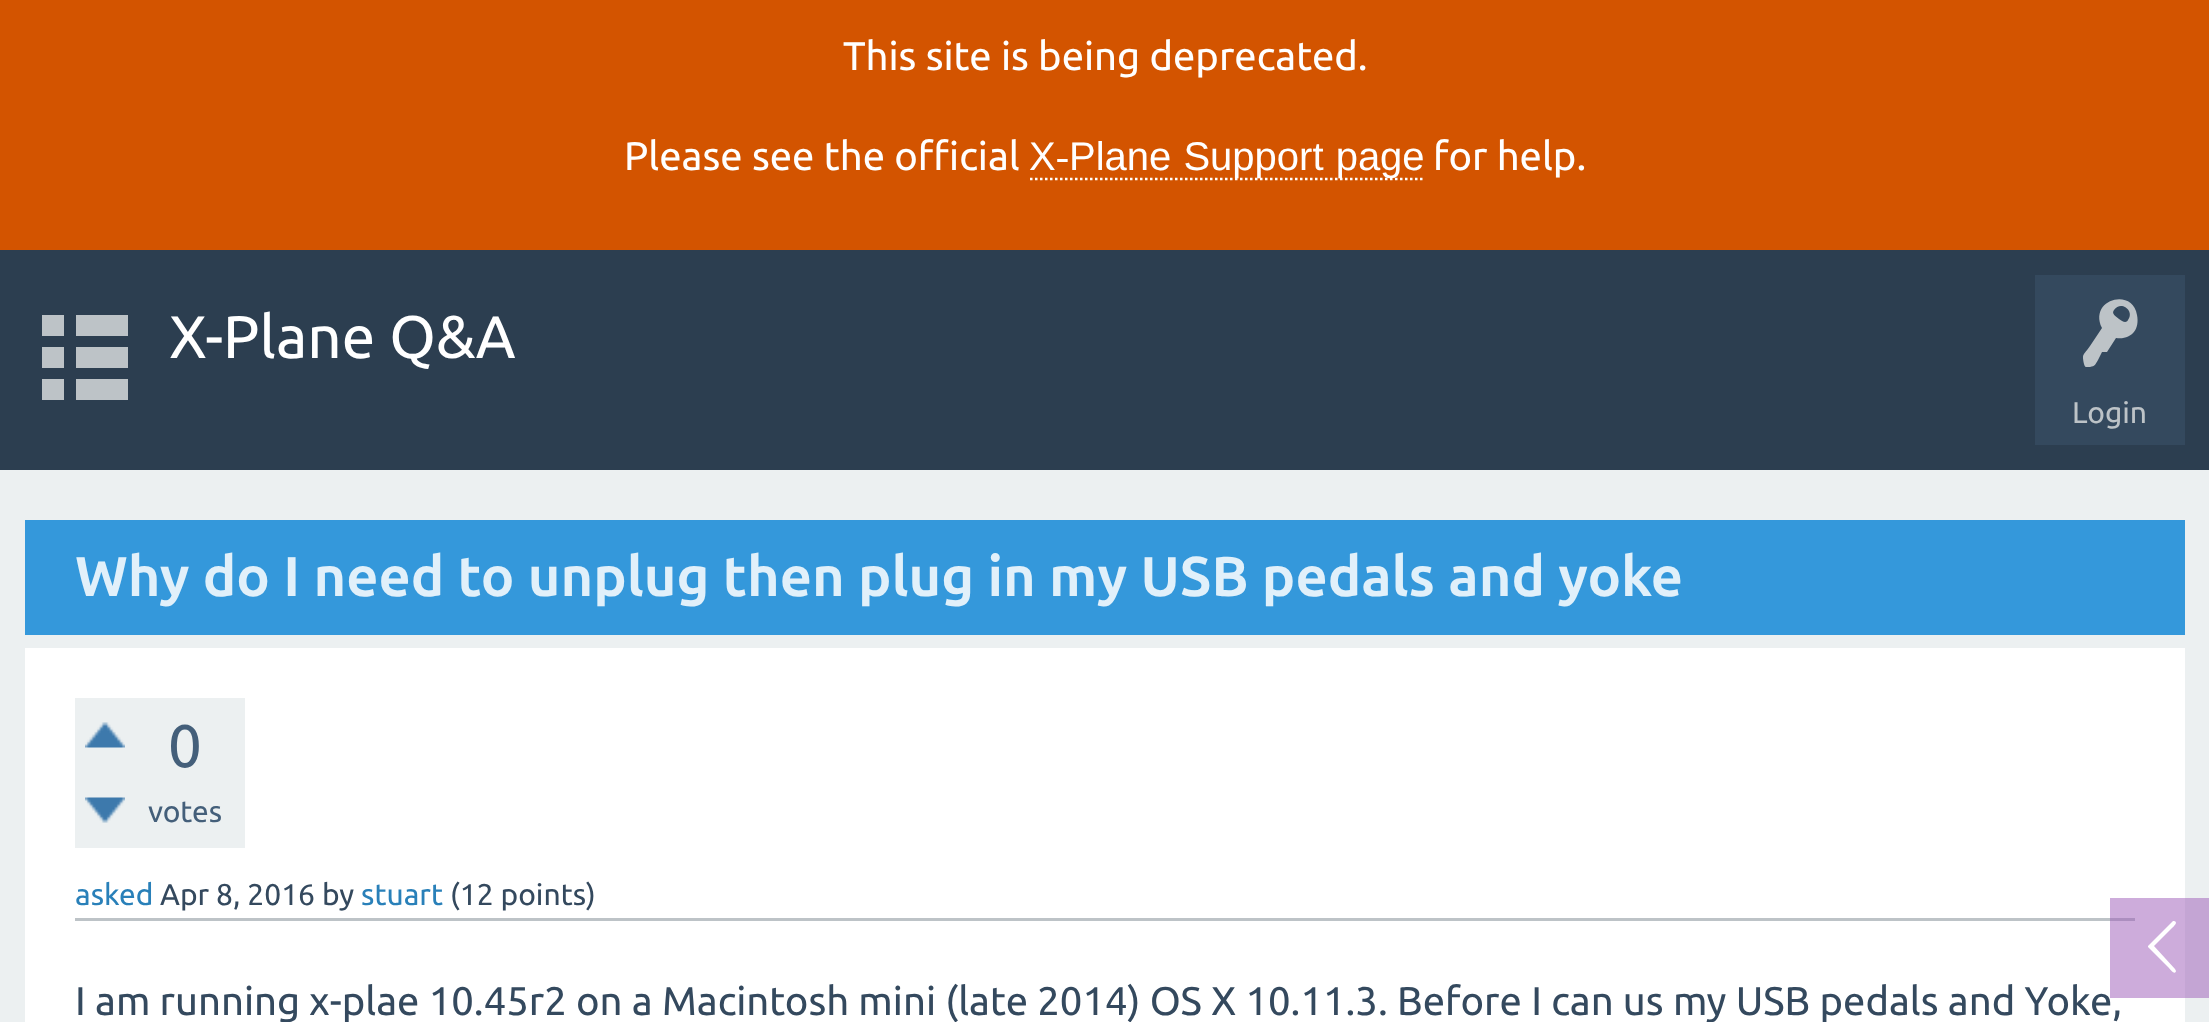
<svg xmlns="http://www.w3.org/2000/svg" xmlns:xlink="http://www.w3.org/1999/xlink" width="2209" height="1022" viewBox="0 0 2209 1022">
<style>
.cls-1{font:40px Ubuntu;fill:#ffffff}
.cls-2{font:40px Liberation Sans;fill:#ffffff}
.cls-3{font:60px Ubuntu;fill:#ffffff}
.cls-4{font:30px Ubuntu;fill:#bdc3c7}
.cls-5{font:bold 56px Ubuntu;fill:#e1f0fa}
.cls-6{font:60px Ubuntu;fill:#445f7a}
.cls-7{font:30px Ubuntu;fill:#445f7a}
.cls-8{font:30px Ubuntu;fill:#2980b9}
.cls-9{font:30px Ubuntu;fill:#34495e}
.cls-10{font:40px Ubuntu;fill:#34495e}
</style>
<rect width="100%" height="100%" fill="#ecf0f1"/>
<rect fill="#c4a5d4" x="2185" y="898" width="24" height="100"/>
<rect fill="#d35400" x="0" y="0" width="2209" height="250"/>
<path fill="none" stroke="#ffffff" stroke-width="2.5" stroke-dasharray="2.5 2.5" d="M1030 179H1422.5"/>
<rect fill="#2c3e50" x="0" y="250" width="2209" height="220"/>
<path fill="#bdc3c7" d="M42 400V379H64V400ZM42 368V347H64V368ZM42 336V315H64V336ZM76 400V379H128V400ZM76 368V347H128V368ZM76 336V315H128V336Z"/>
<rect fill="#34495e" x="2035" y="275" width="150" height="170"/>
<path fill="#bdc3c7" d="M2137 315C2140 330 2131 340 2116 338L2107 352H2102L2098 360C2095 365 2095 366 2090 367C2086 367 2085 368 2084 364C2082 353 2083 356 2090 346L2102 328C2088 299 2133 287 2137 315ZM2128 320C2135 311 2121 300 2114 310C2111 314 2116 316 2119 319C2122 321 2126 324 2128 320Z"/>
<rect fill="#3498db" x="25" y="520" width="2160" height="115"/>
<rect fill="#ffffff" x="25" y="648" width="2160" height="374"/>
<rect fill="#cdacdb" x="2110" y="898" width="75" height="100"/>
<rect fill="#ecf0f1" x="75" y="698" width="170" height="150"/>
<image xlink:href="image0.png" x="85" y="722" width="40" height="26"/>
<image xlink:href="image1.png" x="85" y="797" width="40" height="26"/>
<rect fill="#bdc3c7" x="75" y="918" width="2035" height="3"/>
<rect fill="#ac8ebf" x="2110" y="918" width="25" height="3"/>
<path fill="#ffffff" d="M2175 969L2176 971C2175 976 2169 968 2169 968L2148 947V946L2173 921H2174C2179 922 2173 927 2172 928L2154 946Z"/>
<text class="cls-1" x="843" y="70">This site is being deprecated.</text>
<text class="cls-1" x="624" y="170">Please see the official</text>
<text class="cls-2" x="1029" y="170" word-spacing="1">X‑Plane Support page</text>
<text class="cls-1" x="1433" y="170">for help.</text>
<text class="cls-3" x="169" y="358">X-Plane Q&amp;A</text>
<text class="cls-4" x="2072" y="423">Login</text>
<text class="cls-5" x="75" y="596">Why do I need to unplug then plug in my USB pedals and yoke</text>
<text class="cls-6" x="168" y="767">0</text>
<text class="cls-7" x="148" y="822">votes</text>
<text class="cls-8" x="75" y="905">asked</text>
<text class="cls-9" x="160" y="905">Apr 8, 2016 by</text>
<text class="cls-8" x="361" y="905">stuart</text>
<text class="cls-9" x="450" y="905">(12 points)</text>
<text class="cls-10" x="75" y="1015">I am running x-plae 10.45r2 on a Macintosh mini (late 2014) OS X 10.11.3. Before I can us my USB pedals and Yoke,</text>
</svg>
